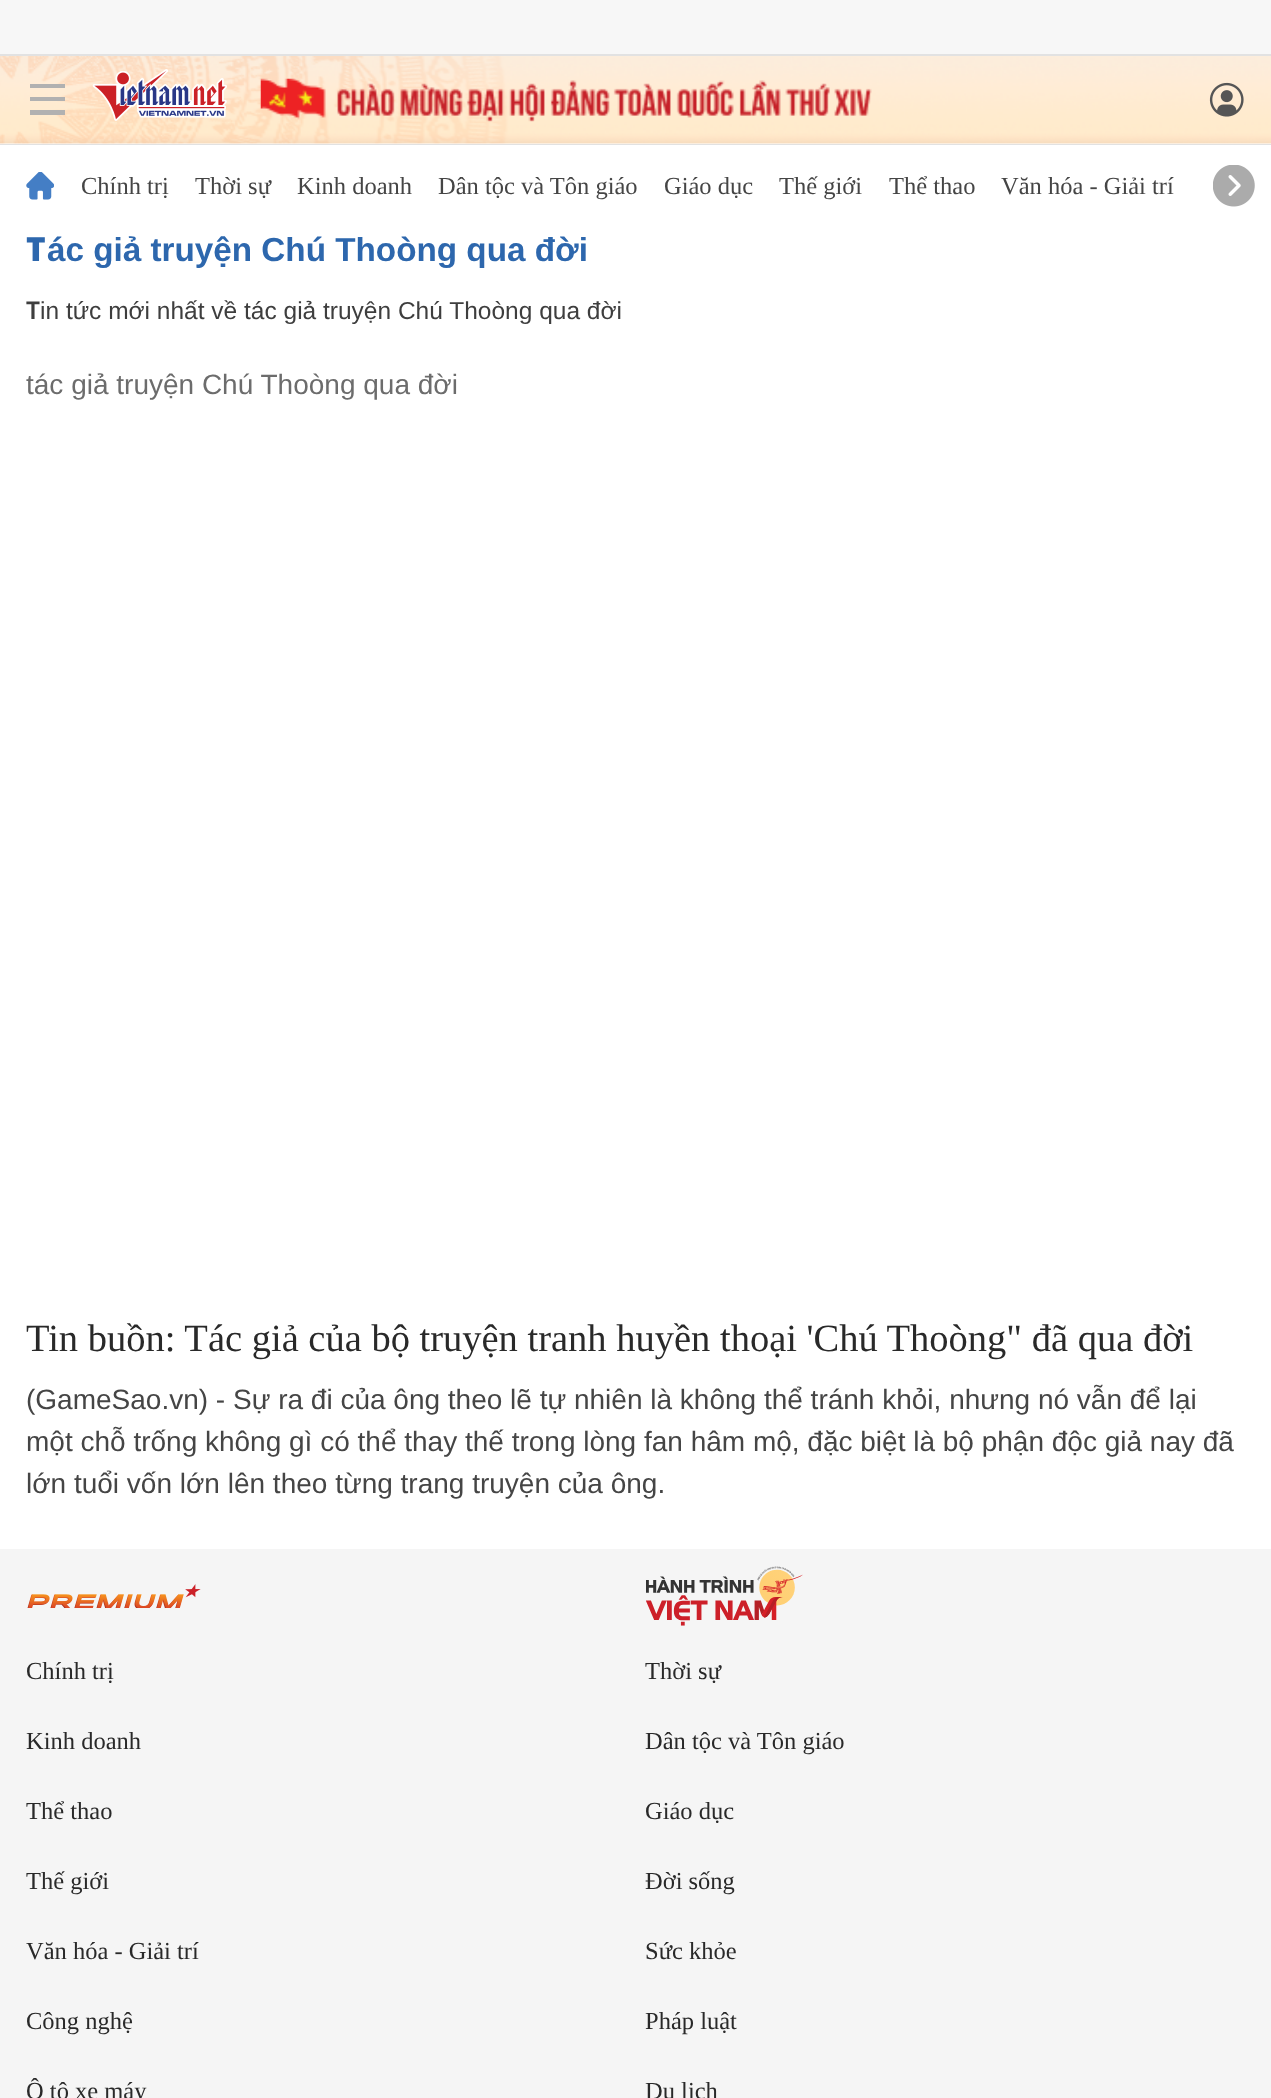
<svg xmlns="http://www.w3.org/2000/svg" xmlns:xlink="http://www.w3.org/1999/xlink" width="1271" height="2098" viewBox="0 0 1271 2098">
<style>
.cls-1{font:24.5px Liberation Serif;fill:#454545}
.cls-2{font:900 33.25px Noto Sans;fill:#2d67ad}
.cls-3{font:bold 33.25px Liberation Sans;fill:#2d67ad}
.cls-4{font:600 24.5px Noto Sans;fill:#3e3e3e}
.cls-5{font:24.5px Liberation Sans;fill:#3e3e3e}
.cls-6{font:28px Liberation Sans;fill:#6c6c6c}
.cls-7{font:38.5px Liberation Serif;fill:#292929}
.cls-8{font:28px Liberation Sans;fill:#454545}
.cls-9{font:24.5px Liberation Serif;fill:#292929}
</style>
<rect width="100%" height="100%" fill="#ffffff"/>
<rect fill="#f7f7f7" x="0" y="0" width="1271" height="54"/>
<rect fill="#e2e2e2" x="0" y="54" width="1271" height="2"/>
<image xlink:href="image0.png" x="0" y="56" width="1271" height="88"/>
<rect fill="#e2e2e2" x="0" y="144" width="1271" height="1"/>
<rect fill="#b1b1b1" x="30" y="84" width="35" height="4"/>
<rect fill="#b1b1b1" x="30" y="97" width="35" height="4"/>
<rect fill="#b1b1b1" x="30" y="110" width="35" height="5"/>
<image xlink:href="image1.png" x="92" y="69" width="135" height="52"/>
<image xlink:href="image2.png" x="260" y="78" width="612" height="44"/>
<image xlink:href="image3.png" x="1209" y="82" width="35" height="35"/>
<image xlink:href="image4.png" x="26" y="172" width="28" height="28"/>
<image xlink:href="image5.png" x="1213" y="165" width="42" height="42"/>
<rect fill="#f5f5f5" x="0" y="1549" width="1271" height="549"/>
<image xlink:href="image6.png" x="27" y="1584" width="174" height="24"/>
<image xlink:href="image7.png" x="646" y="1566" width="157" height="60"/>
<text class="cls-1" x="81" y="194">Chính trị</text>
<text class="cls-1" x="195" y="194">Thời sự</text>
<text class="cls-1" x="297" y="194">Kinh doanh</text>
<text class="cls-1" x="438" y="194">Dân tộc và Tôn giáo</text>
<text class="cls-1" x="664" y="194">Giáo dục</text>
<text class="cls-1" x="779" y="194">Thế giới</text>
<text class="cls-1" x="889" y="194">Thể thao</text>
<text class="cls-1" x="1001" y="194">Văn hóa - Giải trí</text>
<text class="cls-2" x="26" y="261">T</text>
<text class="cls-3" x="47" y="261">ác giả truyện Chú Thoòng qua đời</text>
<text class="cls-4" x="26" y="319">T</text>
<text class="cls-5" x="40" y="319">in tức mới nhất về tác giả truyện Chú Thoòng qua đời</text>
<text class="cls-6" x="26" y="394">tác giả truyện Chú Thoòng qua đời</text>
<text class="cls-7" x="26" y="1351">Tin buồn: Tác giả của bộ truyện tranh huyền thoại 'Chú Thoòng" đã qua đời</text>
<text class="cls-8"><tspan x="26" y="1409">(GameSao.vn) - Sự ra đi của ông theo lẽ tự nhiên là không thể tránh khỏi, nhưng nó vẫn để lại</tspan><tspan x="26" y="1451">một chỗ trống không gì có thể thay thế trong lòng fan hâm mộ, đặc biệt là bộ phận độc giả nay đã</tspan><tspan x="26" y="1493">lớn tuổi vốn lớn lên theo từng trang truyện của ông.</tspan></text>
<text class="cls-9" x="26" y="1679">Chính trị</text>
<text class="cls-9" x="645" y="1679">Thời sự</text>
<text class="cls-9" x="26" y="1749">Kinh doanh</text>
<text class="cls-9" x="645" y="1749">Dân tộc và Tôn giáo</text>
<text class="cls-9" x="26" y="1819">Thể thao</text>
<text class="cls-9" x="645" y="1819">Giáo dục</text>
<text class="cls-9" x="26" y="1889">Thế giới</text>
<text class="cls-9" x="645" y="1889">Đời sống</text>
<text class="cls-9" x="26" y="1959">Văn hóa - Giải trí</text>
<text class="cls-9" x="645" y="1959">Sức khỏe</text>
<text class="cls-9" x="26" y="2029">Công nghệ</text>
<text class="cls-9" x="645" y="2029">Pháp luật</text>
<text class="cls-9" x="26" y="2099">Ô tô xe máy</text>
<text class="cls-9" x="645" y="2099">Du lịch</text>
</svg>
